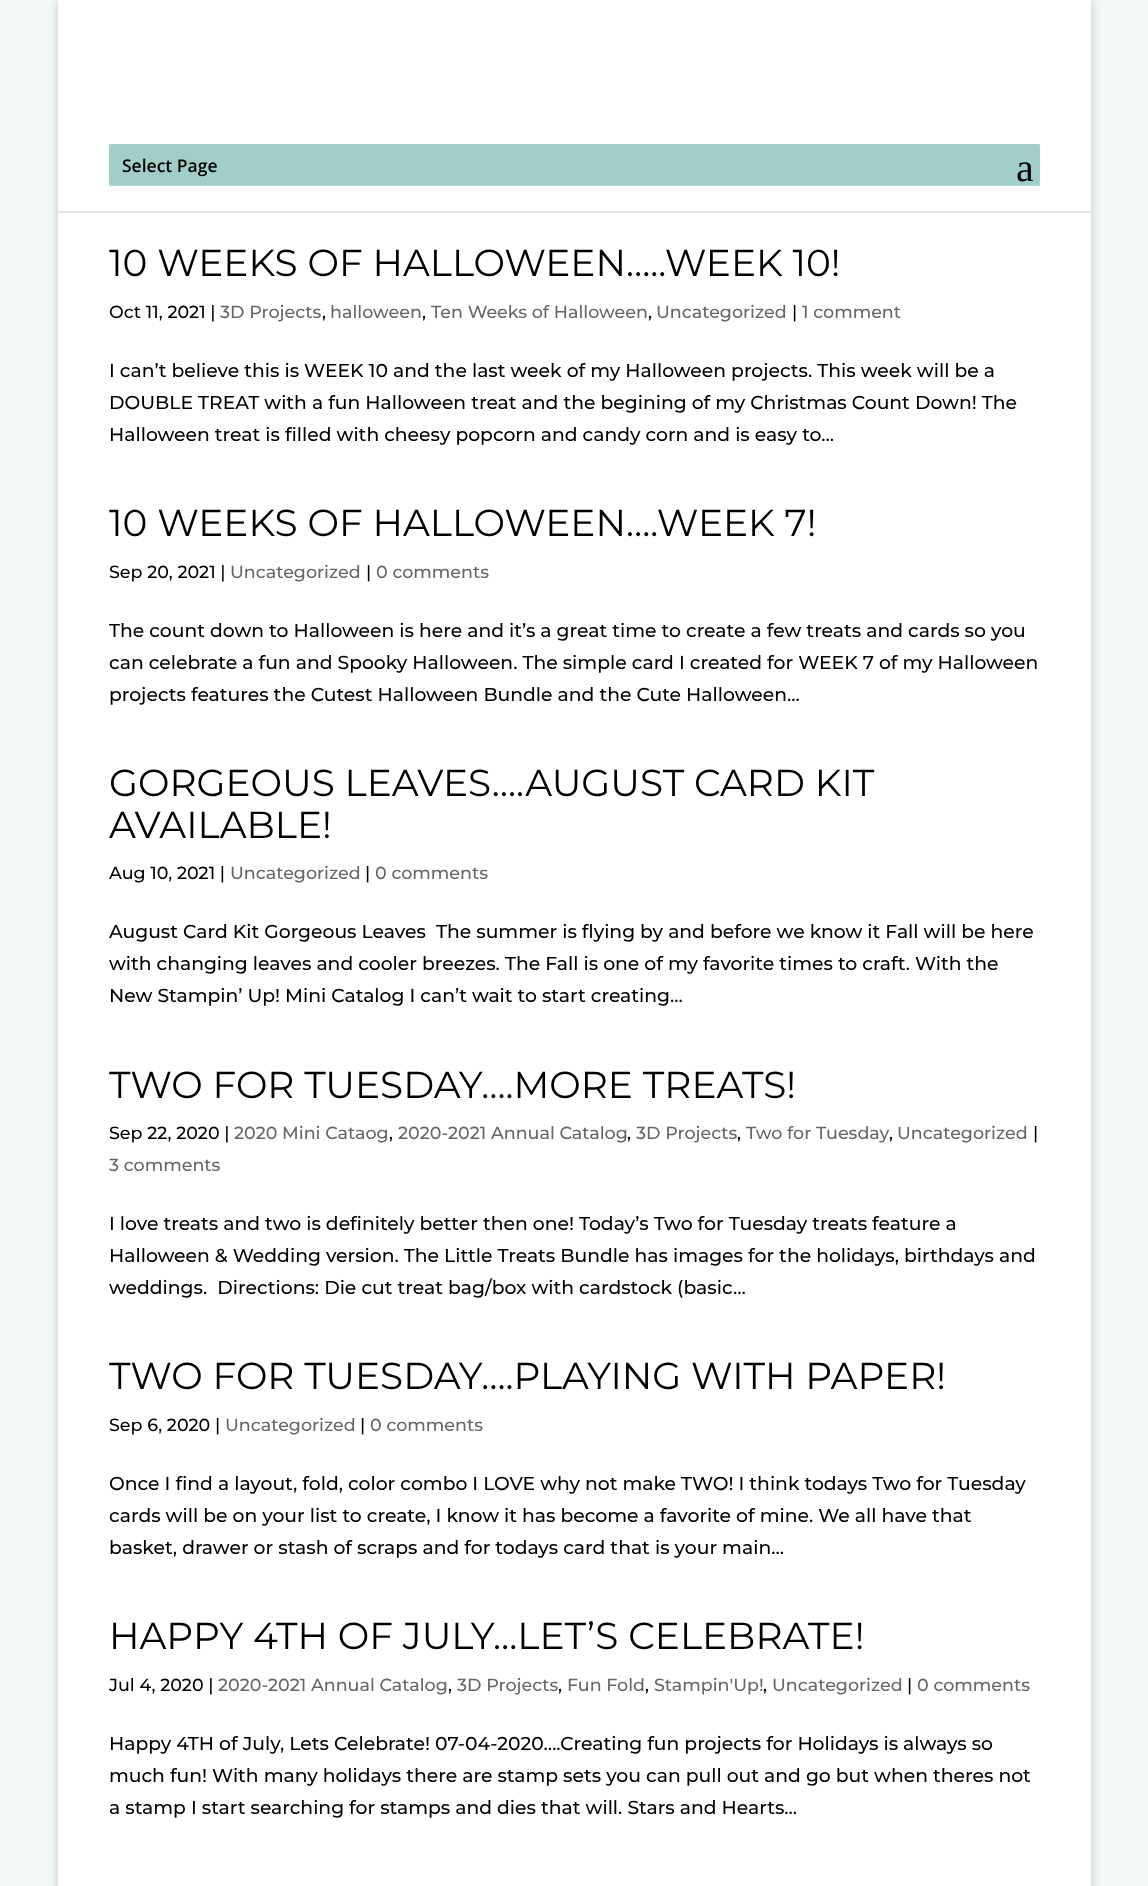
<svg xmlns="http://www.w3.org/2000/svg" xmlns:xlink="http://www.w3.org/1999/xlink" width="1148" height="1886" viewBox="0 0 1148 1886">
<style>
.cls-1{font:600 17.5px Open Sans;fill:#000000}
.cls-2{font:40px Liberation Serif;fill:#000000}
.cls-3{font:100 37.5px Montserrat;fill:#000000}
.cls-4{font:100 17.5px 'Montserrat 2';fill:#000000}
.cls-5{font:100 17.5px 'Montserrat 2';fill:#666666}
.cls-6{font:100 18.75px 'Montserrat 2';fill:#000000}
</style>
<rect width="100%" height="100%" fill="#f3faf7"/>
<rect fill="#000000" fill-opacity="0.2" filter="blur(6px)" x="58" y="0" width="1033" height="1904"/>
<rect fill="#e6e6e6" x="58" y="211" width="1033" height="2"/>
<rect fill="#ffffff" x="58" y="0" width="1033" height="211"/>
<rect fill="#abd9d5" x="109" y="144" width="931" height="42"/>
<rect fill="#a2ceca" x="109" y="144" width="931" height="41" rx="6"/>
<rect fill="#ffffff" x="58" y="213" width="1033" height="1673"/>
<text class="cls-1" x="122" y="172">Select Page</text>
<text class="cls-2" x="1016" y="181">a</text>
<text class="cls-3" x="109" y="276">10 WEEKS OF HALLOWEEN…..WEEK 10!</text>
<text class="cls-4" x="109" y="318">Oct 11, 2021 |</text>
<text class="cls-5" x="220" y="318">3D Projects</text>
<text class="cls-4" x="322" y="318">,</text>
<text class="cls-5" x="330" y="318">halloween</text>
<text class="cls-4" x="422" y="318">,</text>
<text class="cls-5" x="431" y="318">Ten Weeks of Halloween</text>
<text class="cls-4" x="648" y="318">,</text>
<text class="cls-5" x="656" y="318">Uncategorized</text>
<text class="cls-4" x="792" y="318">|</text>
<text class="cls-5" x="802" y="318">1 comment</text>
<text class="cls-6"><tspan x="109" y="377">I can’t believe this is WEEK 10 and the last week of my Halloween projects. This week will be a</tspan><tspan x="109" y="409">DOUBLE TREAT with a fun Halloween treat and the begining of my Christmas Count Down! The</tspan><tspan x="109" y="441">Halloween treat is filled with cheesy popcorn and candy corn and is easy to...</tspan></text>
<text class="cls-3" x="109" y="536">10 WEEKS OF HALLOWEEN….WEEK 7!</text>
<text class="cls-4" x="109" y="578">Sep 20, 2021 |</text>
<text class="cls-5" x="230" y="578">Uncategorized</text>
<text class="cls-4" x="366" y="578">|</text>
<text class="cls-5" x="376" y="578">0 comments</text>
<text class="cls-6"><tspan x="109" y="637">The count down to Halloween is here and it’s a great time to create a few treats and cards so you</tspan><tspan x="109" y="669">can celebrate a fun and Spooky Halloween. The simple card I created for WEEK 7 of my Halloween</tspan><tspan x="109" y="701">projects features the Cutest Halloween Bundle and the Cute Halloween...</tspan></text>
<text class="cls-3"><tspan x="109" y="796">GORGEOUS LEAVES….AUGUST CARD KIT</tspan><tspan x="109" y="838">AVAILABLE!</tspan></text>
<text class="cls-4" x="109" y="879">Aug 10, 2021 |</text>
<text class="cls-5" x="230" y="879">Uncategorized</text>
<text class="cls-4" x="365" y="879">|</text>
<text class="cls-5" x="375" y="879">0 comments</text>
<text class="cls-6" xml:space="preserve"><tspan x="109" y="938">August Card Kit Gorgeous Leaves  The summer is flying by and before we know it Fall will be here</tspan><tspan x="109" y="970">with changing leaves and cooler breezes. The Fall is one of my favorite times to craft. With the</tspan><tspan x="109" y="1002">New Stampin’ Up! Mini Catalog I can’t wait to start creating...</tspan></text>
<text class="cls-3" x="109" y="1098">TWO FOR TUESDAY….MORE TREATS!</text>
<text class="cls-4" x="109" y="1139">Sep 22, 2020 |</text>
<text class="cls-5" x="234" y="1139">2020 Mini Cataog</text>
<text class="cls-4" x="389" y="1139">,</text>
<text class="cls-5" x="398" y="1139">2020-2021 Annual Catalog</text>
<text class="cls-4" x="627" y="1139">,</text>
<text class="cls-5" x="636" y="1139">3D Projects</text>
<text class="cls-4" x="737" y="1139">,</text>
<text class="cls-5" x="746" y="1139">Two for Tuesday</text>
<text class="cls-4" x="889" y="1139">,</text>
<text class="cls-5" x="897" y="1139">Uncategorized</text>
<text class="cls-4" x="1033" y="1139">|</text>
<text class="cls-5" x="109" y="1171">3 comments</text>
<text class="cls-6" xml:space="preserve"><tspan x="109" y="1230">I love treats and two is definitely better then one! Today’s Two for Tuesday treats feature a</tspan><tspan x="109" y="1262">Halloween &amp; Wedding version. The Little Treats Bundle has images for the holidays, birthdays and</tspan><tspan x="109" y="1294">weddings.  Directions: Die cut treat bag/box with cardstock (basic...</tspan></text>
<text class="cls-3" x="109" y="1389">TWO FOR TUESDAY….PLAYING WITH PAPER!</text>
<text class="cls-4" x="109" y="1431">Sep 6, 2020 |</text>
<text class="cls-5" x="225" y="1431">Uncategorized</text>
<text class="cls-4" x="360" y="1431">|</text>
<text class="cls-5" x="370" y="1431">0 comments</text>
<text class="cls-6"><tspan x="109" y="1490">Once I find a layout, fold, color combo I LOVE why not make TWO! I think todays Two for Tuesday</tspan><tspan x="109" y="1522">cards will be on your list to create, I know it has become a favorite of mine. We all have that</tspan><tspan x="109" y="1554">basket, drawer or stash of scraps and for todays card that is your main...</tspan></text>
<text class="cls-3" x="109" y="1649">HAPPY 4TH OF JULY…LET’S CELEBRATE!</text>
<text class="cls-4" x="109" y="1691">Jul 4, 2020 |</text>
<text class="cls-5" x="218" y="1691">2020-2021 Annual Catalog</text>
<text class="cls-4" x="448" y="1691">,</text>
<text class="cls-5" x="457" y="1691">3D Projects</text>
<text class="cls-4" x="558" y="1691">,</text>
<text class="cls-5" x="567" y="1691">Fun Fold</text>
<text class="cls-4" x="645" y="1691">,</text>
<text class="cls-5" x="654" y="1691">Stampin'Up!</text>
<text class="cls-4" x="763" y="1691">,</text>
<text class="cls-5" x="772" y="1691">Uncategorized</text>
<text class="cls-4" x="907" y="1691">|</text>
<text class="cls-5" x="917" y="1691">0 comments</text>
<text class="cls-6"><tspan x="109" y="1750">Happy 4TH of July, Lets Celebrate! 07-04-2020….Creating fun projects for Holidays is always so</tspan><tspan x="109" y="1782">much fun! With many holidays there are stamp sets you can pull out and go but when theres not</tspan><tspan x="109" y="1814">a stamp I start searching for stamps and dies that will. Stars and Hearts...</tspan></text>
</svg>
